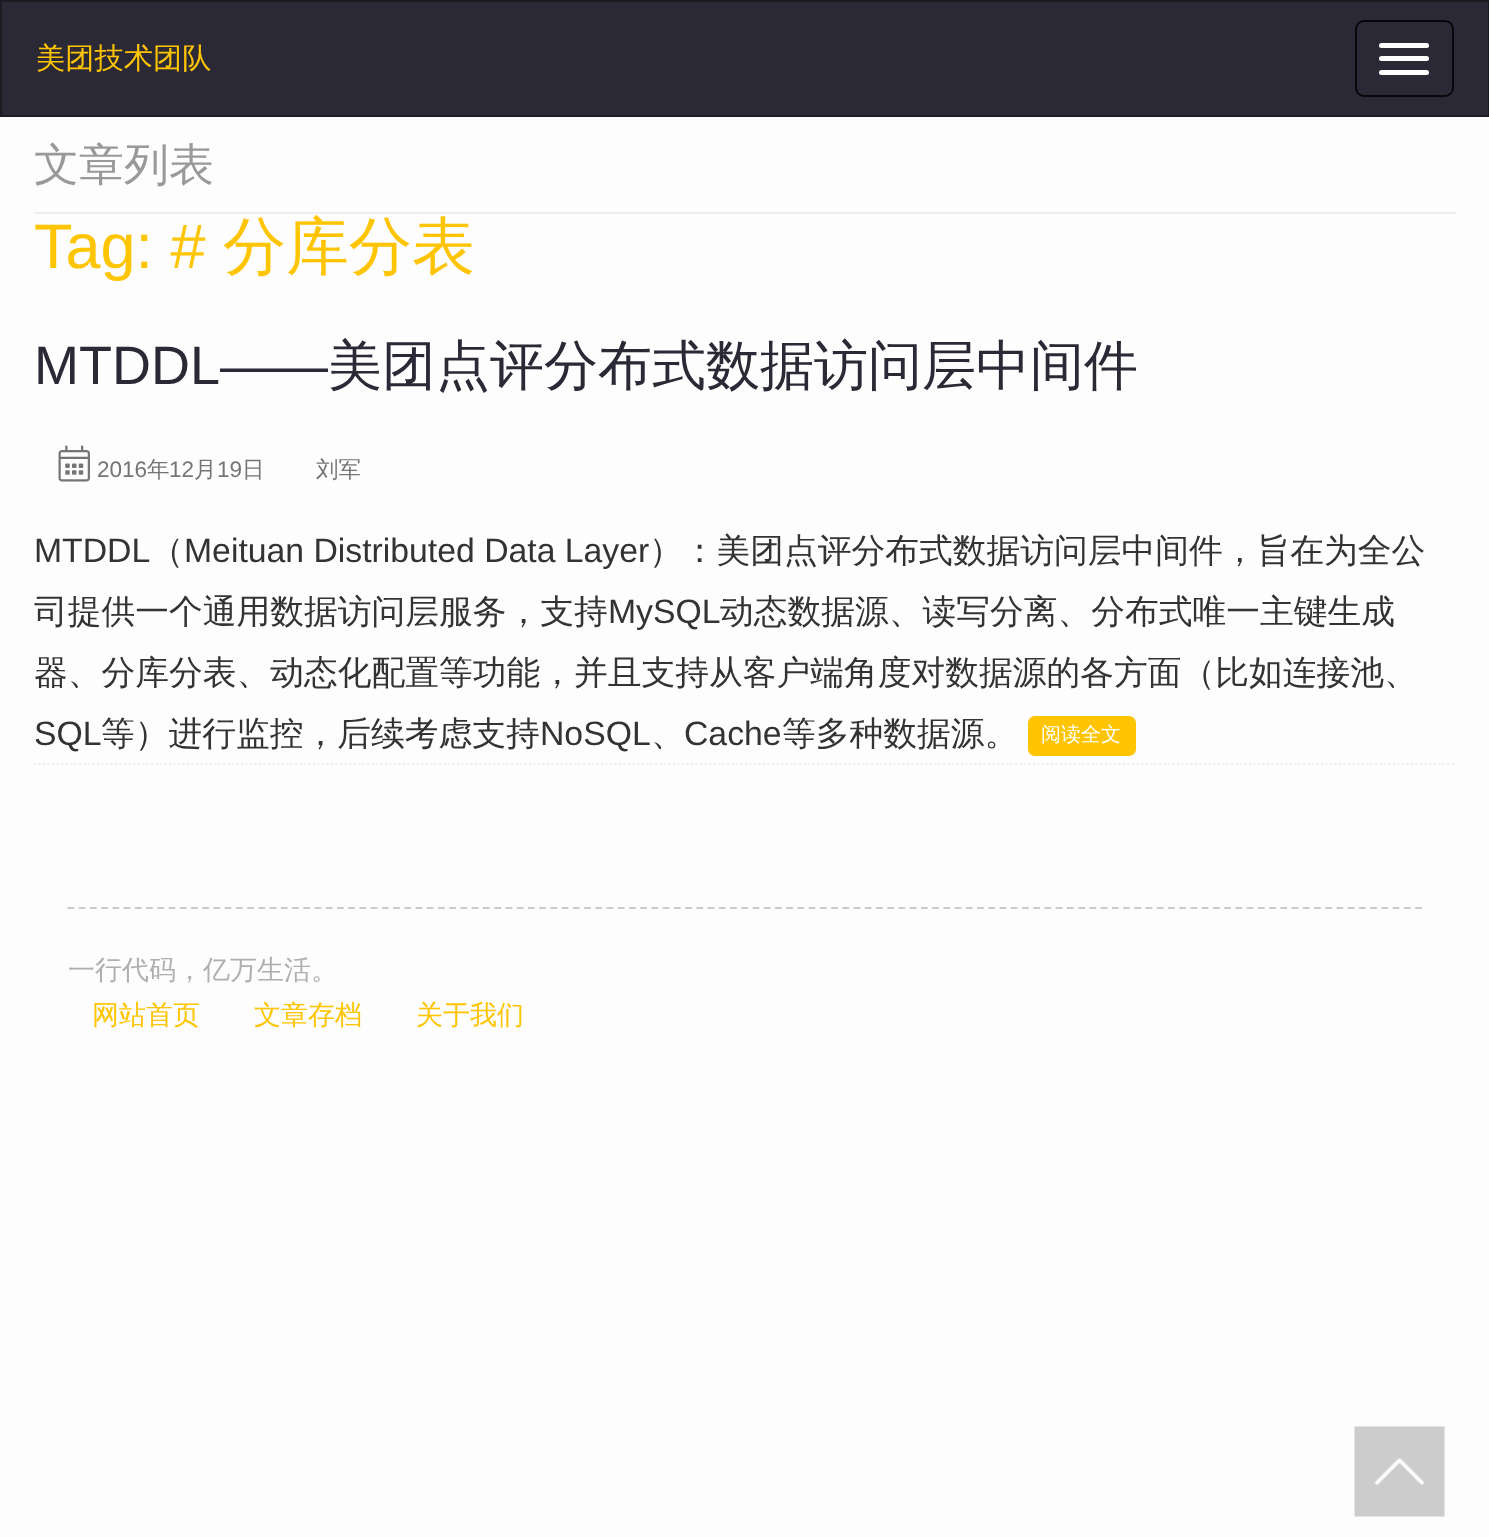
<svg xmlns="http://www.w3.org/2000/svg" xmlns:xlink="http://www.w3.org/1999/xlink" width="1489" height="1537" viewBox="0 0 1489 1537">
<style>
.cls-1{font:500 29.25px WenQuanYi Zen Hei;fill:#ffc402}
.cls-2{font:500 45px WenQuanYi Zen Hei;fill:#999999}
.cls-3{font:63px Liberation Sans;fill:#ffc402}
.cls-4{font:500 63px WenQuanYi Zen Hei;fill:#ffc402}
.cls-5{font:54px Liberation Sans;fill:#2a2935}
.cls-6{font:500 54px WenQuanYi Zen Hei;fill:#2a2935}
.cls-7{font:22.5px Liberation Sans;fill:#757575}
.cls-8{font:500 22.5px WenQuanYi Zen Hei;fill:#757575}
.cls-9{font:33.75px Liberation Sans;fill:#333333}
.cls-10{font:500 33.75px WenQuanYi Zen Hei;fill:#333333}
.cls-11{font:500 20px WenQuanYi Zen Hei;fill:#ffffff}
.cls-12{font:500 27px WenQuanYi Zen Hei;fill:#afafaf}
.cls-13{font:500 27px WenQuanYi Zen Hei;fill:#ffc402}
</style>
<rect width="100%" height="100%" fill="#fdfdfd"/>
<rect fill="#2a2935" stroke="#1b1b22" stroke-width="2" x="1" y="1" width="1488" height="115"/>
<rect fill="none" stroke="#08080a" stroke-width="2" x="1356" y="21" width="97" height="75" rx="8"/>
<rect fill="#ffffff" x="1379" y="43" width="50" height="5" rx="2.5"/>
<rect fill="#ffffff" x="1379" y="56" width="50" height="5" rx="2.5"/>
<rect fill="#ffffff" x="1379" y="70" width="50" height="5" rx="2.5"/>
<rect fill="#eeeeee" x="34" y="212" width="1422" height="2"/>
<path fill="none" stroke="#eeeeee" stroke-width="2.2" stroke-dasharray="2.25 2.25" d="M34 764H1456"/>
<image xlink:href="image0.png" x="58" y="445" width="32" height="37"/>
<rect fill="#ffc402" stroke="#ffc402" stroke-width="2" x="1029" y="717" width="106" height="38" rx="6"/>
<path fill="none" stroke="#cacaca" stroke-width="2.2" stroke-dasharray="6.75 4.48" d="M67.5 908H1422"/>
<image xlink:href="image1.png" x="1354" y="1426" width="91" height="91"/>
<text class="cls-1" x="36" y="68">美团技术团队</text>
<text class="cls-2" x="34" y="180">文章列表</text>
<text class="cls-3" x="34" y="268">Tag: #</text>
<text class="cls-4" x="223" y="268">分库分表</text>
<text class="cls-5" x="34" y="384">MTDDL——</text>
<text class="cls-6" x="328" y="384">美团点评分布式数据访问层中间件</text>
<text class="cls-7" x="97" y="477">2016</text>
<text class="cls-8" x="147" y="477">年</text>
<text class="cls-7" x="169" y="477">12</text>
<text class="cls-8" x="194" y="477">月</text>
<text class="cls-7" x="217" y="477">19</text>
<text class="cls-8" x="242" y="477">日</text>
<text class="cls-8" x="316" y="477">刘军</text>
<text class="cls-9" x="34" y="562">MTDDL</text>
<text class="cls-10" x="150" y="562">（</text>
<text class="cls-9" x="184" y="562">Meituan Distributed Data Layer</text>
<text class="cls-10" x="649" y="562">）：美团点评分布式数据访问层中间件，旨在为全公</text>
<text class="cls-10" x="34" y="623">司提供一个通用数据访问层服务，支持</text>
<text class="cls-9" x="608" y="623">MySQL</text>
<text class="cls-10" x="720" y="623">动态数据源、读写分离、分布式唯一主键生成</text>
<text class="cls-10" x="34" y="684">器、分库分表、动态化配置等功能，并且支持从客户端角度对数据源的各方面（比如连接池、</text>
<text class="cls-9" x="34" y="745">SQL</text>
<text class="cls-10" x="101" y="745">等）进行监控，后续考虑支持</text>
<text class="cls-9" x="540" y="745">NoSQL</text>
<text class="cls-9" x="684" y="745">Cache</text>
<text class="cls-10" x="782" y="745">等多种数据源。</text>
<text class="cls-11" x="1041" y="741">阅读全文</text>
<text class="cls-10" x="651" y="745">、</text>
<text class="cls-12" x="68" y="979">一行代码，亿万生活。</text>
<text class="cls-13" x="92" y="1024">网站首页</text>
<text class="cls-13" x="254" y="1024">文章存档</text>
<text class="cls-13" x="416" y="1024">关于我们</text>
</svg>
